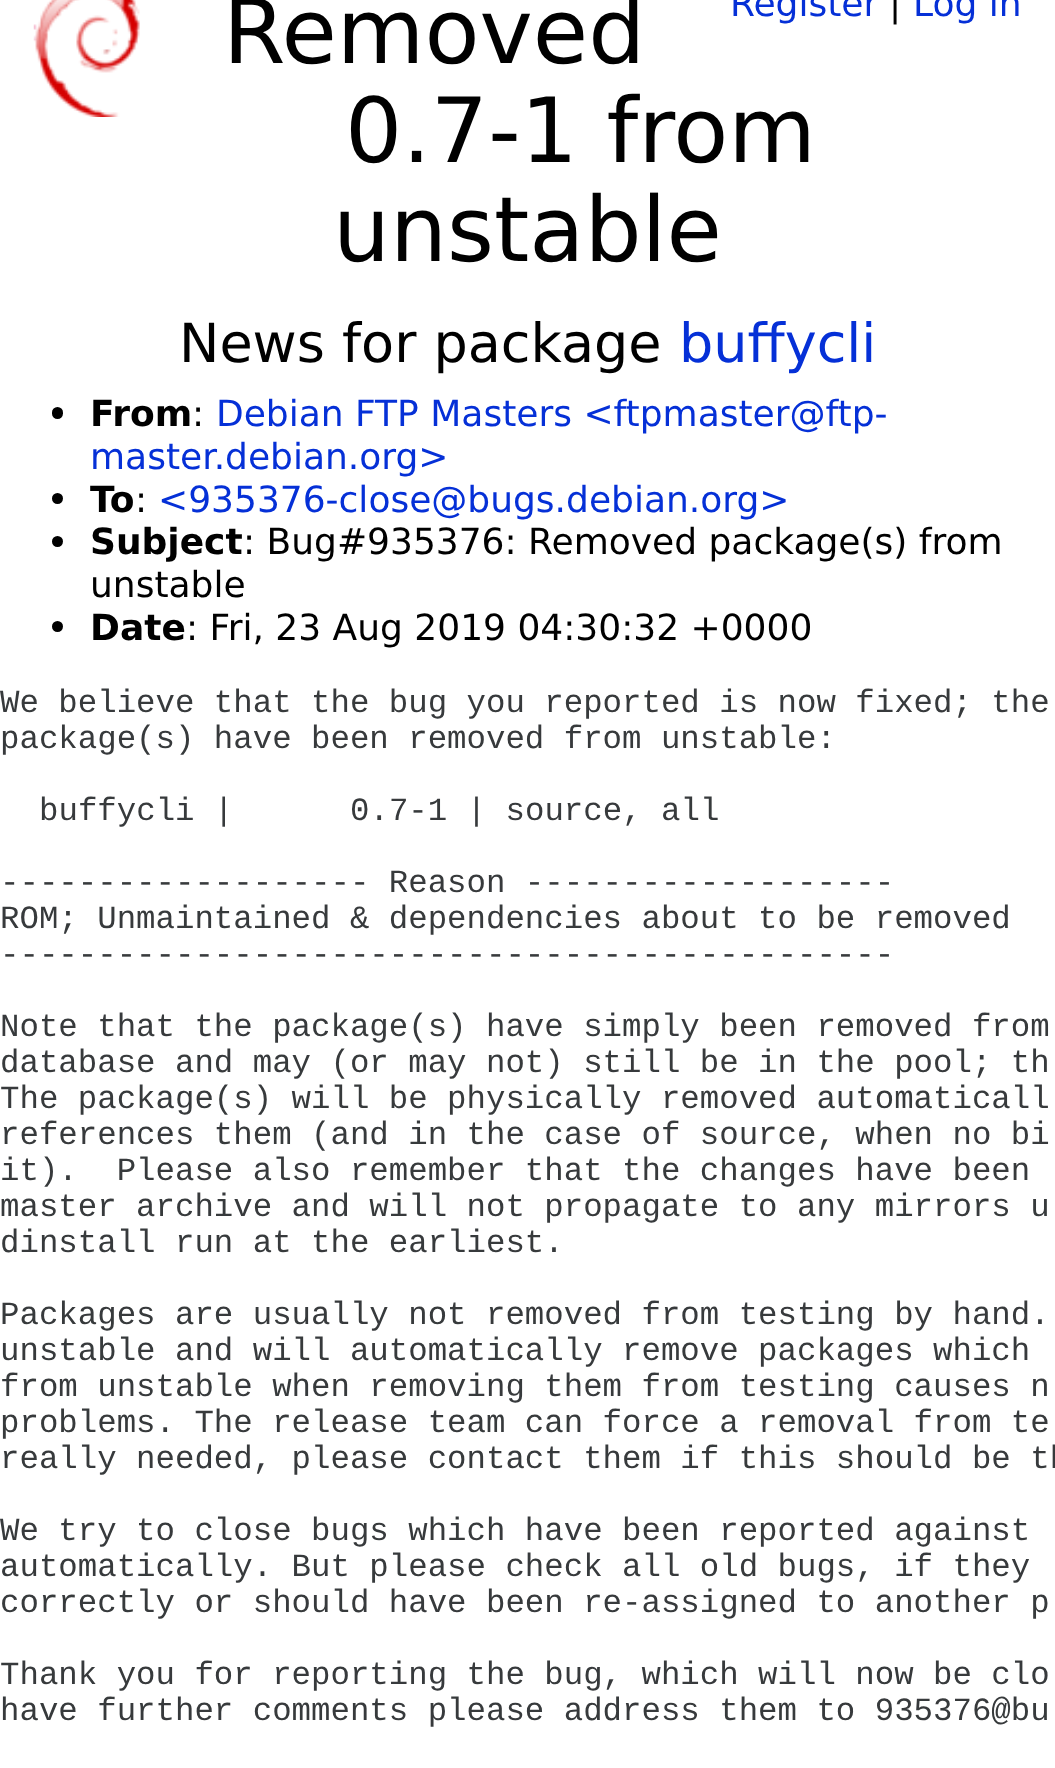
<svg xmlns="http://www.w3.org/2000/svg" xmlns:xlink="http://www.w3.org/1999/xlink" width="1055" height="1768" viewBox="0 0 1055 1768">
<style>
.cls-1{font:90px DejaVu Sans;fill:#000000}
.cls-2{font:36px DejaVu Sans;fill:#0530d7}
.cls-3{font:36px DejaVu Sans;fill:#000000}
.cls-4{font:54px DejaVu Sans;fill:#000000}
.cls-5{font:54px DejaVu Sans;fill:#0530d7}
.cls-6{font:bold 36px DejaVu Sans;fill:#000000}
.cls-7{font:32.4px Liberation Mono;fill:#373a3c}
</style>
<rect width="100%" height="100%" fill="#ffffff"/>
<image xlink:href="image0.png" x="33" y="0" width="107" height="117"/>
<rect fill="#000000" x="52" y="407" width="11" height="12" rx="5.5"/>
<circle fill="#000000" cx="57.5" cy="498.5" r="5.5"/>
<circle fill="#000000" cx="57.5" cy="541.5" r="5.5"/>
<circle fill="#000000" cx="57.5" cy="626.5" r="5.5"/>
<text class="cls-1" x="223" y="63">Removed</text>
<text class="cls-1" x="345" y="162">0.7-1 from</text>
<text class="cls-1" x="333" y="261">unstable</text>
<text class="cls-2" x="730" y="16">Register</text>
<text class="cls-3" x="889" y="16">|</text>
<text class="cls-2" x="913" y="16">Log in</text>
<text class="cls-4" x="179" y="362">News for package</text>
<text class="cls-5" x="679" y="362">buffycli</text>
<text class="cls-6" x="90" y="426">From</text>
<text class="cls-3" x="192" y="426">:</text>
<text class="cls-2" x="216" y="426">Debian FTP Masters &lt;ftpmaster@ftp-</text>
<text class="cls-2" x="90" y="469">master.debian.org&gt;</text>
<text class="cls-6" x="90" y="512">To</text>
<text class="cls-3" x="135" y="512">:</text>
<text class="cls-2" x="158" y="512">&lt;935376-close@bugs.debian.org&gt;</text>
<text class="cls-6" x="90" y="554">Subject</text>
<text class="cls-3" x="243" y="554">: Bug#935376: Removed package(s) from</text>
<text class="cls-3" x="90" y="597">unstable</text>
<text class="cls-6" x="90" y="640">Date</text>
<text class="cls-3" x="186" y="640">: Fri, 23 Aug 2019 04:30:32 +0000</text>
<text class="cls-7"><tspan x="0" y="712">We believe that the bug you reported is now fixed; the</tspan><tspan x="0" y="748">package(s) have been removed from unstable:</tspan></text>
<text class="cls-7" xml:space="preserve" x="39" y="820">buffycli |      0.7-1 | source, all</text>
<text class="cls-7"><tspan x="0" y="892">------------------- Reason -------------------</tspan><tspan x="0" y="928">ROM; Unmaintained &amp; dependencies about to be removed</tspan><tspan x="0" y="964">----------------------------------------------</tspan></text>
<text class="cls-7" xml:space="preserve"><tspan x="0" y="1036">Note that the package(s) have simply been removed from</tspan><tspan x="0" y="1072">database and may (or may not) still be in the pool; th</tspan><tspan x="0" y="1108">The package(s) will be physically removed automaticall</tspan><tspan x="0" y="1144">references them (and in the case of source, when no bi</tspan><tspan x="0" y="1180">it).  Please also remember that the changes have been</tspan><tspan x="0" y="1216">master archive and will not propagate to any mirrors u</tspan><tspan x="0" y="1252">dinstall run at the earliest.</tspan></text>
<text class="cls-7"><tspan x="0" y="1324">Packages are usually not removed from testing by hand.</tspan><tspan x="0" y="1360">unstable and will automatically remove packages which</tspan><tspan x="0" y="1396">from unstable when removing them from testing causes n</tspan><tspan x="0" y="1432">problems. The release team can force a removal from te</tspan><tspan x="0" y="1468">really needed, please contact them if this should be th</tspan></text>
<text class="cls-7"><tspan x="0" y="1540">We try to close bugs which have been reported against</tspan><tspan x="0" y="1576">automatically. But please check all old bugs, if they</tspan><tspan x="0" y="1612">correctly or should have been re-assigned to another p</tspan></text>
<text class="cls-7"><tspan x="0" y="1684">Thank you for reporting the bug, which will now be clo</tspan><tspan x="0" y="1720">have further comments please address them to 935376@bu</tspan></text>
</svg>
